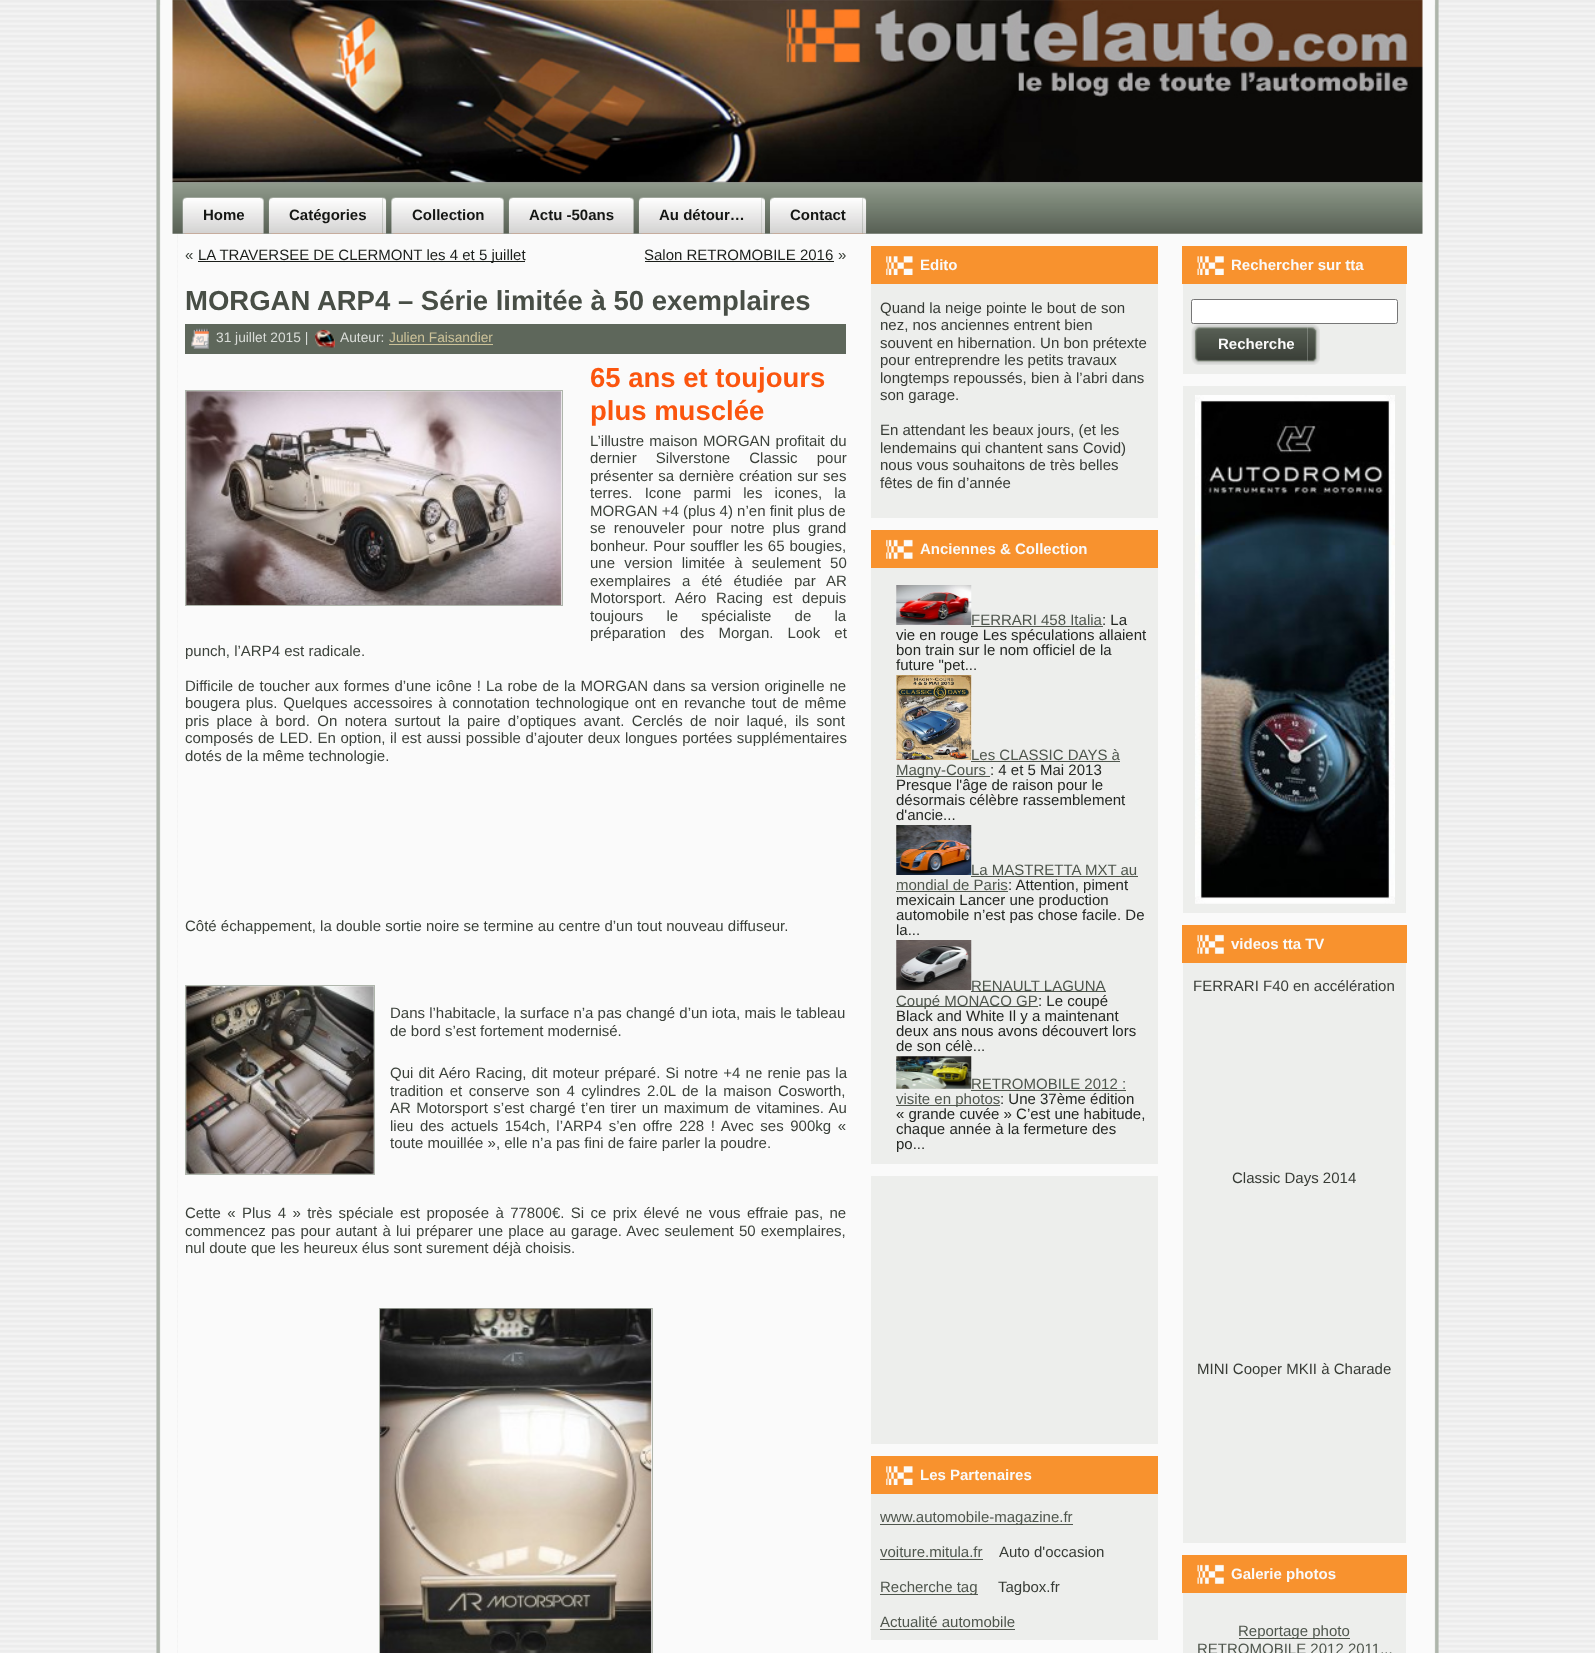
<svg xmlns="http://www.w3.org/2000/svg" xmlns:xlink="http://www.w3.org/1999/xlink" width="1595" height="1653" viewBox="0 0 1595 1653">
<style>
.cls-1{font:bold 15px Liberation Sans;fill:#141613}
.cls-2{font:15px Liberation Sans;fill:#3b413a}
.cls-3{font:15px Liberation Sans;fill:#1b1e1a}
.cls-4{font:bold 27.5px Liberation Sans;fill:#484e46}
.cls-5{font:13.75px Liberation Sans;fill:#daddd9}
.cls-6{font:13.75px Liberation Sans;fill:#ccc299}
.cls-7{font:bold 27.5px Liberation Sans;fill:#fb550e}
.cls-8{font:bold 15px Liberation Sans;fill:#fafafa}
.cls-9{font:15px Liberation Sans;fill:#373b35}
.cls-10{font:15px Liberation Sans;fill:#4f564d}
.cls-11{font:15px Liberation Sans;fill:#232622}
</style>
<rect width="100%" height="100%" fill="#ffffff"/>
<image xlink:href="image0.png" x="0" y="0" width="1595" height="1653"/>
<image xlink:href="image1.png" x="156" y="0" width="17" height="5"/>
<image xlink:href="image2.png" x="1422" y="0" width="17" height="5"/>
<image xlink:href="image3.png" x="156" y="5" width="22" height="1648"/>
<rect fill="#fafafa" x="178" y="182" width="1240" height="1471"/>
<image xlink:href="image4.png" x="1418" y="5" width="21" height="1648"/>
<image xlink:href="image5.png" x="172" y="0" width="1251" height="183"/>
<image xlink:href="image6.png" x="172" y="182" width="1251" height="52"/>
<image xlink:href="image7.png" x="182" y="197" width="78" height="37"/>
<image xlink:href="image8.png" x="260" y="197" width="4" height="37"/>
<image xlink:href="image9.png" x="268" y="197" width="115" height="37"/>
<image xlink:href="image10.png" x="382" y="197" width="5" height="37"/>
<image xlink:href="image11.png" x="391" y="197" width="109" height="37"/>
<image xlink:href="image12.png" x="500" y="197" width="4" height="37"/>
<image xlink:href="image13.png" x="508" y="197" width="122" height="37"/>
<image xlink:href="image12.png" x="630" y="197" width="4" height="37"/>
<image xlink:href="image14.png" x="638" y="197" width="124" height="37"/>
<image xlink:href="image15.png" x="761" y="197" width="4" height="37"/>
<image xlink:href="image16.png" x="770" y="197" width="93" height="37"/>
<image xlink:href="image10.png" x="862" y="197" width="5" height="37"/>
<rect fill="#1b1e1a" x="198" y="261" width="327" height="1"/>
<rect fill="#1b1e1a" x="645" y="261" width="189" height="1"/>
<rect fill="#5e675b" x="185" y="324" width="661" height="30"/>
<image xlink:href="image17.png" x="191" y="328" width="18" height="21"/>
<image xlink:href="image18.png" x="315" y="329" width="20" height="19"/>
<rect fill="#ccc299" x="389" y="344" width="104" height="1"/>
<rect fill="none" stroke="#aeb5ab" x="185.5" y="390.5" width="377" height="215"/>
<image xlink:href="image19.png" x="186" y="391" width="376" height="214"/>
<rect fill="none" stroke="#aeb5ab" x="185.5" y="985.5" width="189" height="189"/>
<image xlink:href="image20.png" x="186" y="986" width="188" height="188"/>
<rect fill="none" stroke="#aeb5ab" x="379.5" y="1308.5" width="273" height="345"/>
<image xlink:href="image21.png" x="380" y="1308" width="272" height="345"/>
<rect fill="#f8922e" x="871" y="246" width="287" height="38"/>
<image xlink:href="image22.png" x="886" y="256" width="27" height="19"/>
<rect fill="#edeeec" x="871" y="284" width="287" height="234"/>
<rect fill="#f8922e" x="871" y="530" width="287" height="38"/>
<image xlink:href="image23.png" x="886" y="539" width="27" height="20"/>
<rect fill="#edeeec" x="871" y="568" width="287" height="596"/>
<image xlink:href="image24.png" x="896" y="585" width="76" height="40"/>
<rect fill="#4f564d" x="971" y="626" width="132" height="1"/>
<image xlink:href="image25.png" x="896" y="675" width="76" height="85"/>
<rect fill="#4f564d" x="971" y="761" width="149" height="1"/>
<rect fill="#4f564d" x="896" y="776" width="94" height="1"/>
<image xlink:href="image26.png" x="896" y="825" width="76" height="50"/>
<rect fill="#4f564d" x="971" y="876" width="167" height="1"/>
<rect fill="#4f564d" x="896" y="891" width="112" height="1"/>
<image xlink:href="image27.png" x="896" y="940" width="76" height="50"/>
<rect fill="#4f564d" x="971" y="991" width="135" height="1"/>
<rect fill="#4f564d" x="896" y="1006" width="142" height="1"/>
<image xlink:href="image28.png" x="896" y="1056" width="76" height="33"/>
<rect fill="#4f564d" x="971" y="1090" width="155" height="1"/>
<rect fill="#4f564d" x="896" y="1105" width="104" height="1"/>
<rect fill="#edeeec" x="871" y="1176" width="287" height="268"/>
<rect fill="#f8922e" x="871" y="1456" width="287" height="38"/>
<image xlink:href="image22.png" x="886" y="1466" width="27" height="19"/>
<rect fill="#edeeec" x="871" y="1494" width="287" height="146"/>
<rect fill="#4f564d" x="880" y="1524" width="193" height="1"/>
<rect fill="#4f564d" x="880" y="1559" width="103" height="1"/>
<rect fill="#4f564d" x="880" y="1594" width="98" height="1"/>
<rect fill="#4f564d" x="880" y="1629" width="135" height="1"/>
<rect fill="#f8922e" x="1182" y="246" width="225" height="38"/>
<image xlink:href="image29.png" x="1197" y="256" width="27" height="19"/>
<rect fill="#edeeec" x="1183" y="284" width="223" height="90"/>
<rect fill="#ffffff" stroke="#767676" x="1191.5" y="299.5" width="206" height="24" rx="2"/>
<image xlink:href="image30.png" x="1191" y="324" width="117" height="41"/>
<image xlink:href="image31.png" x="1307" y="324" width="13" height="41"/>
<rect fill="#edeeec" x="1183" y="386" width="223" height="527"/>
<image xlink:href="image32.png" x="1195" y="395" width="200" height="509"/>
<rect fill="#f8922e" x="1182" y="925" width="225" height="38"/>
<image xlink:href="image33.png" x="1197" y="934" width="27" height="20"/>
<rect fill="#edeeec" x="1183" y="963" width="223" height="580"/>
<rect fill="#f8922e" x="1182" y="1555" width="225" height="38"/>
<image xlink:href="image34.png" x="1197" y="1564" width="27" height="20"/>
<rect fill="#edeeec" x="1183" y="1593" width="223" height="60"/>
<rect fill="#4f564d" x="1239" y="1638" width="111" height="1"/>
<text class="cls-1" x="203" y="220">Home</text>
<text class="cls-1" x="289" y="220">Catégories</text>
<text class="cls-1" x="412" y="220">Collection</text>
<text class="cls-1" x="529" y="220">Actu -50ans</text>
<text class="cls-1" x="659" y="220">Au détour…</text>
<text class="cls-1" x="790" y="220">Contact</text>
<text class="cls-2" x="185" y="260">«</text>
<text class="cls-3" x="198" y="260">LA TRAVERSEE DE CLERMONT les 4 et 5 juillet</text>
<text class="cls-3" x="644" y="260">Salon RETROMOBILE 2016</text>
<text class="cls-2" x="838" y="260">»</text>
<text class="cls-4" x="185" y="310">MORGAN ARP4 – Série limitée à 50 exemplaires</text>
<text class="cls-5" x="216" y="342">31 juillet 2015 |</text>
<text class="cls-5" x="340" y="342">Auteur:</text>
<text class="cls-6" x="389" y="342">Julien Faisandier</text>
<text class="cls-7"><tspan x="590" y="387">65 ans et toujours</tspan><tspan x="590" y="420">plus musclée</tspan></text>
<text class="cls-2"><tspan x="590" y="446" word-spacing="1">L’illustre maison MORGAN profitait du</tspan><tspan x="590" y="463" word-spacing="15">dernier Silverstone Classic pour</tspan><tspan x="590" y="481" word-spacing="0.75">présenter sa dernière création sur ses</tspan><tspan x="590" y="498" word-spacing="8">terres. Icone parmi les icones, la</tspan><tspan x="590" y="516">MORGAN +4 (plus 4) n’en finit plus de</tspan><tspan x="590" y="533" word-spacing="3.75">se renouveler pour notre plus grand</tspan><tspan x="590" y="551" word-spacing="0.75">bonheur. Pour souffler les 65 bougies,</tspan><tspan x="590" y="568" word-spacing="5">une version limitée à seulement 50</tspan><tspan x="590" y="586" word-spacing="7">exemplaires a été étudiée par AR</tspan><tspan x="590" y="603" word-spacing="5.5">Motorsport. Aéro Racing est depuis</tspan><tspan x="590" y="621" word-spacing="19">toujours le spécialiste de la</tspan><tspan x="590" y="638" word-spacing="10">préparation des Morgan. Look et</tspan></text>
<text class="cls-2" x="185" y="656">punch, l’ARP4 est radicale.</text>
<text class="cls-2"><tspan x="185" y="691" word-spacing="0.75">Difficile de toucher aux formes d’une icône ! La robe de la MORGAN dans sa version originelle ne</tspan><tspan x="185" y="708" word-spacing="1.6">bougera plus. Quelques accessoires à connotation technologique ont en revanche tout de même</tspan><tspan x="185" y="726" word-spacing="3.25">pris place à bord. On notera surtout la paire d’optiques avant. Cerclés de noir laqué, ils sont</tspan><tspan x="185" y="743" word-spacing="0.5">composés de LED. En option, il est aussi possible d’ajouter deux longues portées supplémentaires</tspan><tspan x="185" y="761">dotés de la même technologie.</tspan></text>
<text class="cls-2" x="185" y="931">Côté échappement, la double sortie noire se termine au centre d’un tout nouveau diffuseur.</text>
<text class="cls-2"><tspan x="390" y="1018">Dans l’habitacle, la surface n’a pas changé d’un iota, mais le tableau</tspan><tspan x="390" y="1036">de bord s’est fortement modernisé.</tspan></text>
<text class="cls-2"><tspan x="390" y="1078" word-spacing="1">Qui dit Aéro Racing, dit moteur préparé. Si notre +4 ne renie pas la</tspan><tspan x="390" y="1096" word-spacing="2.25">tradition et conserve son 4 cylindres 2.0L de la maison Cosworth,</tspan><tspan x="390" y="1113" word-spacing="1.25">AR Motorsport s’est chargé t’en tirer un maximum de vitamines. Au</tspan><tspan x="390" y="1131" word-spacing="2.4">lieu des actuels 154ch, l’ARP4 s’en offre 228 ! Avec ses 900kg «</tspan><tspan x="390" y="1148">toute mouillée », elle n’a pas fini de faire parler la poudre.</tspan></text>
<text class="cls-2"><tspan x="185" y="1218" word-spacing="2.25">Cette « Plus 4 » très spéciale est proposée à 77800€. Si ce prix élevé ne vous effraie pas, ne</tspan><tspan x="185" y="1236" word-spacing="1">commencez pas pour autant à lui préparer une place au garage. Avec seulement 50 exemplaires,</tspan><tspan x="185" y="1253">nul doute que les heureux élus sont surement déjà choisis.</tspan></text>
<text class="cls-8" x="920" y="270">Edito</text>
<text class="cls-9"><tspan x="880" y="313">Quand la neige pointe le bout de son</tspan><tspan x="880" y="330">nez, nos anciennes entrent bien</tspan><tspan x="880" y="348">souvent en hibernation. Un bon prétexte</tspan><tspan x="880" y="365">pour entreprendre les petits travaux</tspan><tspan x="880" y="383">longtemps repoussés, bien à l’abri dans</tspan><tspan x="880" y="400">son garage.</tspan></text>
<text class="cls-9"><tspan x="880" y="435">En attendant les beaux jours, (et les</tspan><tspan x="880" y="453">lendemains qui chantent sans Covid)</tspan><tspan x="880" y="470">nous vous souhaitons de très belles</tspan><tspan x="880" y="488">fêtes de fin d’année</tspan></text>
<text class="cls-8" x="920" y="554">Anciennes &amp; Collection</text>
<text class="cls-10" x="971" y="625">FERRARI 458 Italia</text>
<text class="cls-11" x="1102" y="625">: La</text>
<text class="cls-11"><tspan x="896" y="640">vie en rouge Les spéculations allaient</tspan><tspan x="896" y="655">bon train sur le nom officiel de la</tspan><tspan x="896" y="670">future "pet...</tspan></text>
<text class="cls-10" x="971" y="760">Les CLASSIC DAYS à</text>
<text class="cls-10" x="896" y="775">Magny-Cours</text>
<text class="cls-11" x="990" y="775">: 4 et 5 Mai 2013</text>
<text class="cls-11"><tspan x="896" y="790">Presque l'âge de raison pour le</tspan><tspan x="896" y="805">désormais célèbre rassemblement</tspan><tspan x="896" y="820">d'ancie...</tspan></text>
<text class="cls-10" x="971" y="875">La MASTRETTA MXT au</text>
<text class="cls-10" x="896" y="890">mondial de Paris</text>
<text class="cls-11" x="1008" y="890">: Attention, piment</text>
<text class="cls-11"><tspan x="896" y="905">mexicain Lancer une production</tspan><tspan x="896" y="920">automobile n’est pas chose facile. De</tspan><tspan x="896" y="935">la...</tspan></text>
<text class="cls-10" x="971" y="991">RENAULT LAGUNA</text>
<text class="cls-10" x="896" y="1006">Coupé MONACO GP</text>
<text class="cls-11" x="1038" y="1006">: Le coupé</text>
<text class="cls-11"><tspan x="896" y="1021">Black and White Il y a maintenant</tspan><tspan x="896" y="1036">deux ans nous avons découvert lors</tspan><tspan x="896" y="1051">de son célè...</tspan></text>
<text class="cls-10" x="971" y="1089">RETROMOBILE 2012 :</text>
<text class="cls-10" x="896" y="1104">visite en photos</text>
<text class="cls-11" x="1000" y="1104">: Une 37ème édition</text>
<text class="cls-11"><tspan x="896" y="1119">« grande cuvée » C’est une habitude,</tspan><tspan x="896" y="1134">chaque année à la fermeture des</tspan><tspan x="896" y="1149">po...</tspan></text>
<text class="cls-8" x="920" y="1480">Les Partenaires</text>
<text class="cls-10" x="880" y="1522">www.automobile-magazine.fr</text>
<text class="cls-10" x="880" y="1557">voiture.mitula.fr</text>
<text class="cls-9" x="999" y="1557">Auto d'occasion</text>
<text class="cls-10" x="880" y="1592">Recherche tag</text>
<text class="cls-9" x="998" y="1592">Tagbox.fr</text>
<text class="cls-10" x="880" y="1627">Actualité automobile</text>
<text class="cls-8" x="1231" y="270">Rechercher sur tta</text>
<text class="cls-8" x="1218" y="349">Recherche</text>
<text class="cls-8" x="1231" y="949">videos tta TV</text>
<text class="cls-9" x="1193" y="991">FERRARI F40 en accélération</text>
<text class="cls-9" x="1232" y="1183">Classic Days 2014</text>
<text class="cls-9" x="1197" y="1374">MINI Cooper MKII à Charade</text>
<text class="cls-8" x="1231" y="1579">Galerie photos</text>
<text class="cls-10" x="1238" y="1636">Reportage photo</text>
<text class="cls-10" x="1197" y="1654">RETROMOBILE 2012 2011...</text>
</svg>
